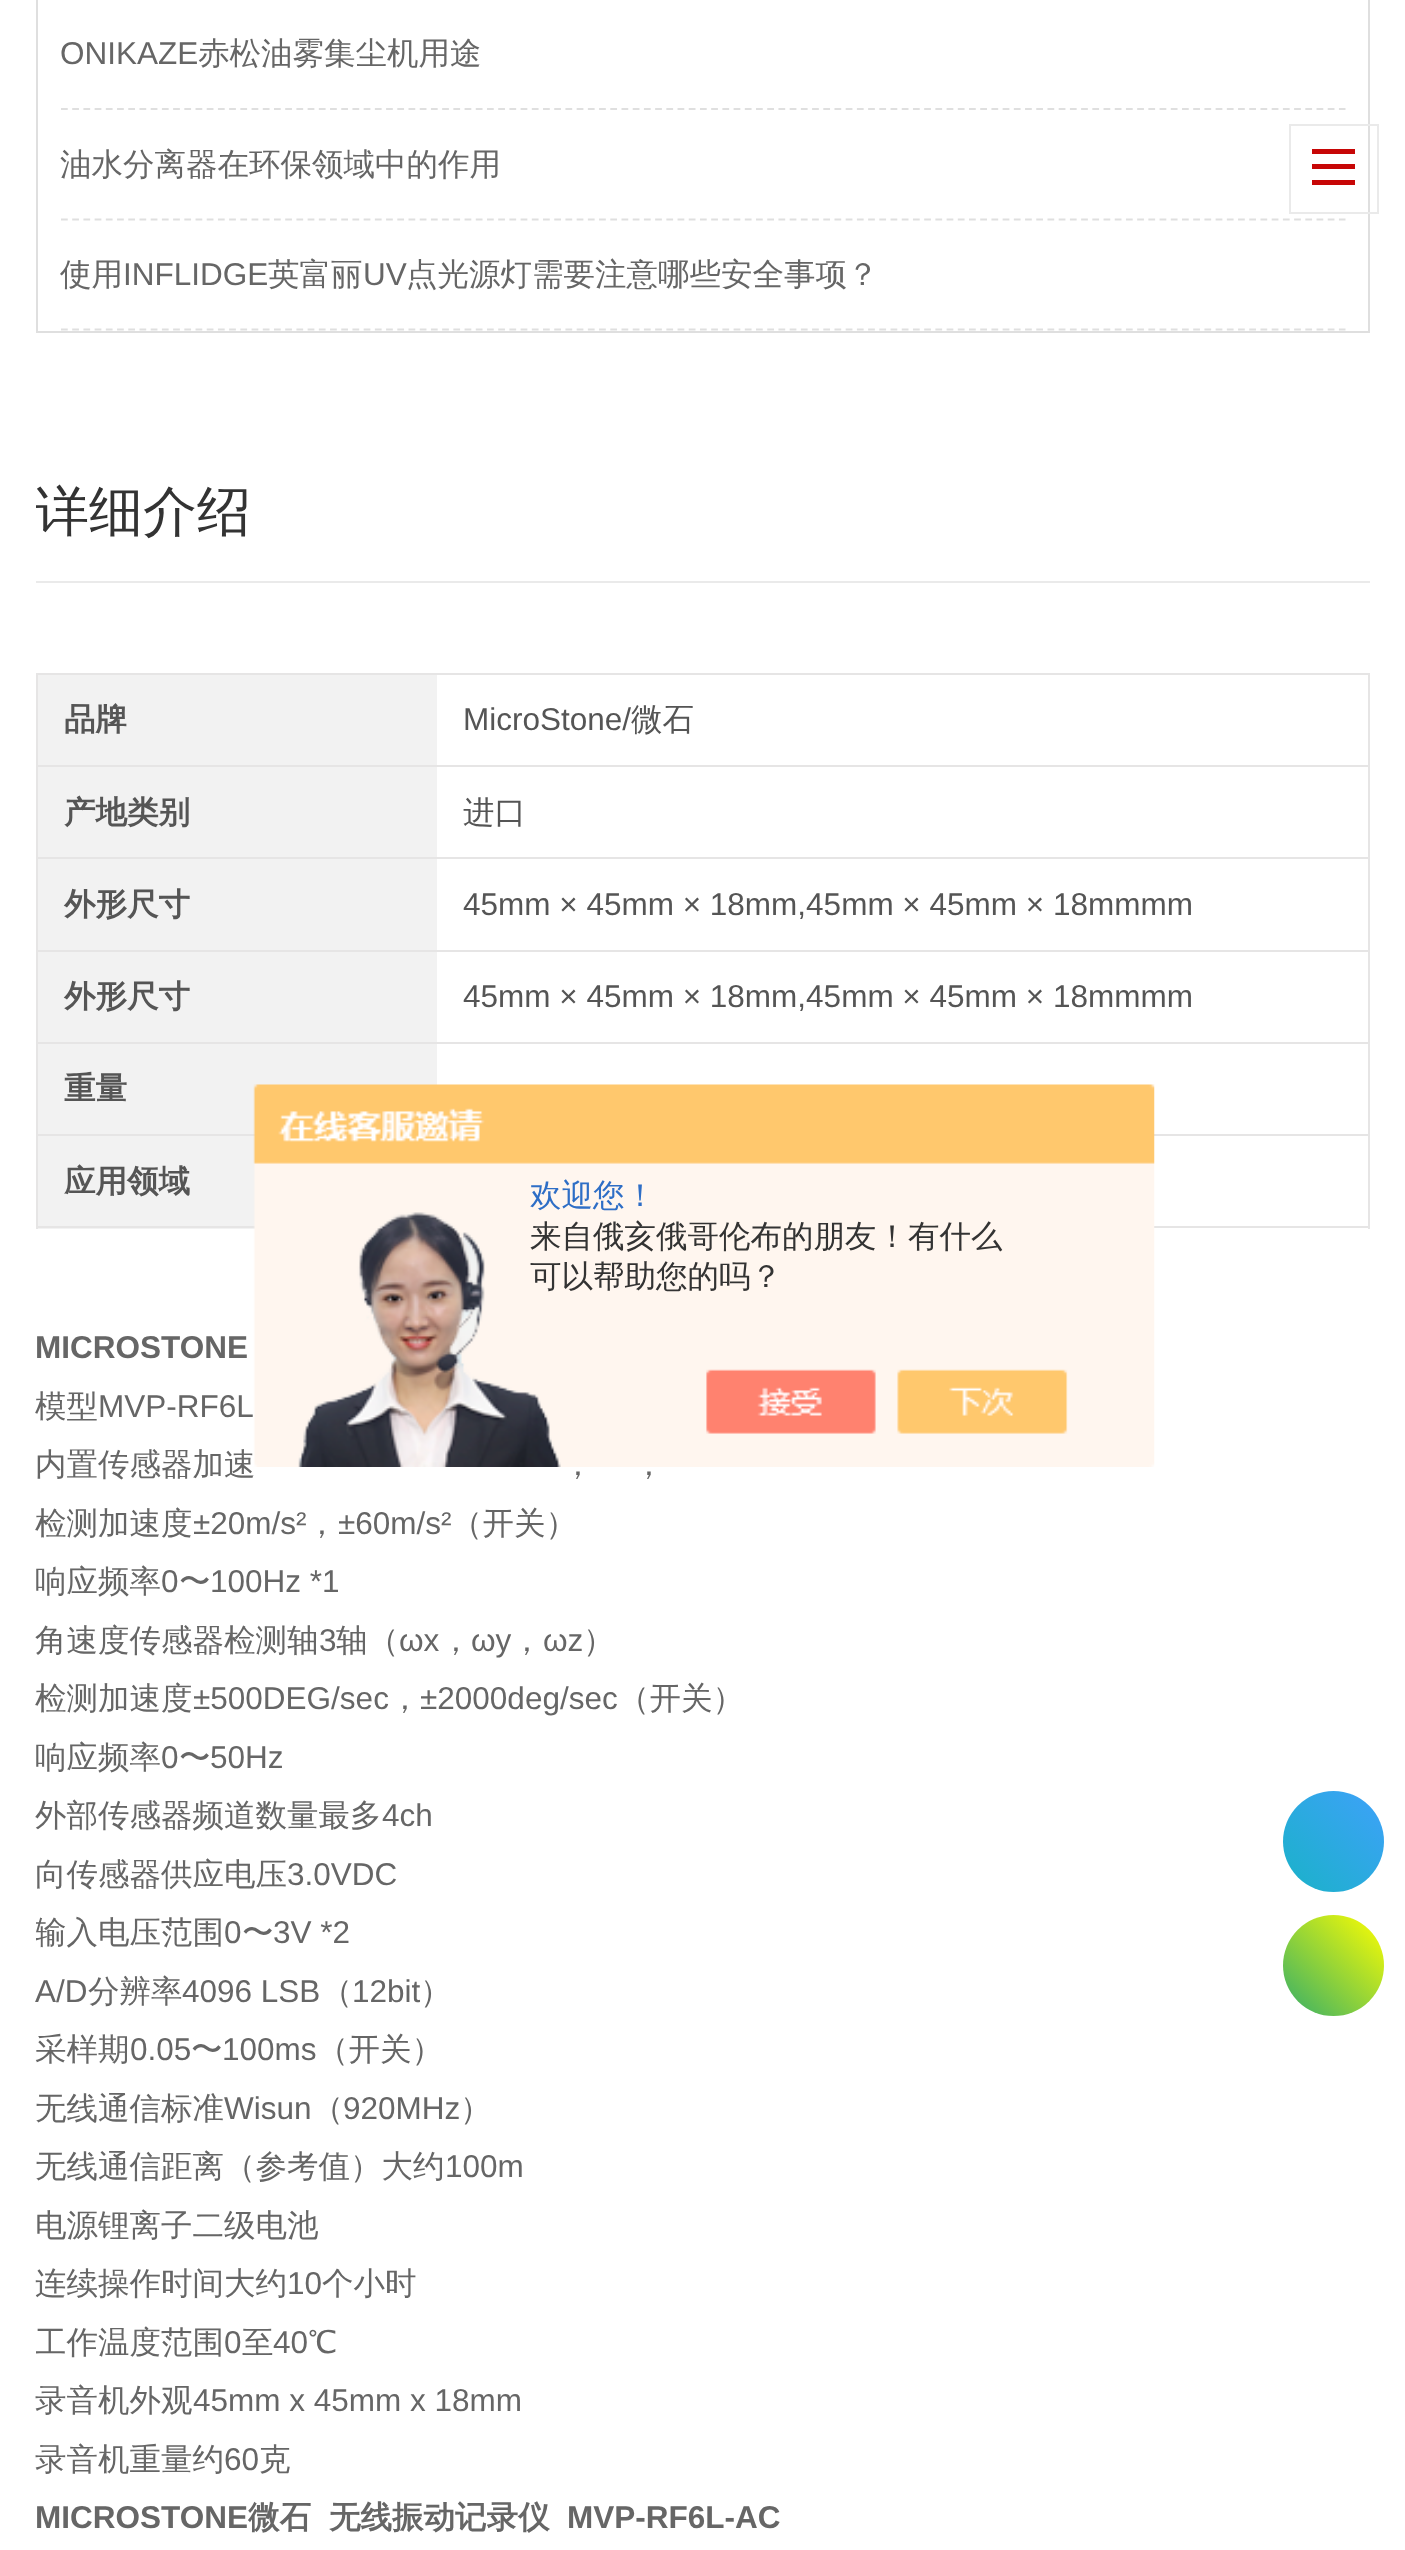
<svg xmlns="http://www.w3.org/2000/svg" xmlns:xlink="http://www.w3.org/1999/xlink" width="1405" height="2550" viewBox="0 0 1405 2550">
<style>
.cls-1{font:31.5px Liberation Sans;fill:#666666}
.cls-2{font:500 31.5px WenQuanYi Zen Hei;fill:#666666}
.cls-3{font:500 54px WenQuanYi Zen Hei;fill:#333333}
.cls-4{font:bold 31.5px WenQuanYi Zen Hei;fill:#555555}
.cls-5{font:31.5px Liberation Sans;fill:#555555}
.cls-6{font:500 31.5px WenQuanYi Zen Hei;fill:#555555}
.cls-7{font:bold 31.5px Liberation Sans;fill:#666666}
.cls-8{font:bold 31.5px WenQuanYi Zen Hei;fill:#666666}
.cls-9{font:500 31.5px WenQuanYi Zen Hei;fill:#2e6ec6}
.cls-10{font:500 31.5px WenQuanYi Zen Hei;fill:#333333}
</style>
<defs>
<linearGradient id="g1" gradientUnits="userSpaceOnUse" x1="1283" y1="1892" x2="1384" y2="1791"><stop offset="0" stop-color="#1ab2c8"/><stop offset="1" stop-color="#3ea1fa"/></linearGradient>
<linearGradient id="g2" gradientUnits="userSpaceOnUse" x1="1283" y1="2016" x2="1384" y2="1915"><stop offset="0" stop-color="#34ad6a"/><stop offset="1" stop-color="#ffff00"/></linearGradient>
<clipPath id="clip1"><rect x="36" y="446" width="1334" height="135"/></clipPath>
<clipPath id="clip2"><rect x="36" y="1904" width="1334" height="58"/></clipPath>
<clipPath id="clip3"><rect x="36" y="2313" width="1334" height="59"/></clipPath>
</defs>
<rect width="100%" height="100%" fill="#ffffff"/>
<rect fill="#dfdfdf" x="1368" y="0" width="2" height="333"/>
<rect fill="#dfdfdf" x="36" y="331" width="1334" height="2"/>
<rect fill="#dfdfdf" x="36" y="0" width="2" height="333"/>
<path fill="none" stroke="#dfdfdf" stroke-width="2.2" stroke-dasharray="6.75 4.46" d="M61-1H1345.5"/>
<path fill="none" stroke="#dfdfdf" stroke-width="2.2" stroke-dasharray="6.75 4.46" d="M61 109H1345.5"/>
<path fill="none" stroke="#dfdfdf" stroke-width="2.2" stroke-dasharray="6.75 4.46" d="M61 219.5H1345.5"/>
<path fill="none" stroke="#dfdfdf" stroke-width="2.2" stroke-dasharray="6.75 4.46" d="M61 329.5H1345.5"/>
<rect fill="#eaeaea" x="36" y="581" width="1334" height="2"/>
<rect fill="#e6e5e5" x="36" y="673" width="1334" height="2"/>
<rect fill="#e6e5e5" x="1368" y="673" width="2" height="556"/>
<rect fill="#e6e5e5" x="36" y="673" width="2" height="556"/>
<rect fill="#f2f2f2" x="38" y="675" width="399" height="90"/>
<rect fill="#e6e5e5" x="38" y="765" width="1330" height="2"/>
<rect fill="#f2f2f2" x="38" y="767" width="399" height="183"/>
<rect fill="#e6e5e5" x="38" y="857" width="1330" height="2"/>
<rect fill="#e6e5e5" x="38" y="950" width="1330" height="2"/>
<rect fill="#f2f2f2" x="38" y="952" width="399" height="90"/>
<rect fill="#e6e5e5" x="38" y="1042" width="1330" height="2"/>
<rect fill="#f2f2f2" x="38" y="1044" width="399" height="90"/>
<rect fill="#e6e5e5" x="38" y="1134" width="217" height="2"/>
<rect fill="#e6e5e5" x="1154" y="1134" width="214" height="2"/>
<rect fill="#f2f2f2" x="38" y="1136" width="217" height="93"/>
<rect fill="#e6e5e5" x="38" y="1226" width="217" height="2"/>
<rect fill="#e6e5e5" x="1154" y="1226" width="214" height="2"/>
<rect fill="none" stroke="#eaeaea" stroke-width="2" x="1290" y="125" width="88" height="88"/>
<rect fill="#c70606" x="1312" y="149" width="43" height="5"/>
<rect fill="#c70606" x="1312" y="164" width="43" height="5"/>
<rect fill="#c70606" x="1312" y="180" width="43" height="5"/>
<circle fill="url(#g1)" cx="1333.5" cy="1841.5" r="50.5"/>
<circle fill="url(#g2)" cx="1333.5" cy="1965.5" r="50.5"/>
<text class="cls-1" x="60" y="64">ONIKAZE</text>
<text class="cls-2" x="198" y="64">赤松油雾集尘机用途</text>
<text class="cls-2" x="60" y="175">油水分离器在环保领域中的作用</text>
<text class="cls-2" x="60" y="285">使用</text>
<text class="cls-1" x="123" y="285">INFLIDGE</text>
<text class="cls-2" x="268" y="285">英富丽</text>
<text class="cls-1" x="363" y="285">UV</text>
<text class="cls-2" x="406" y="285">点光源灯需要注意哪些安全事项？</text>
<g clip-path="url(#clip1)">
<text class="cls-3" x="35" y="530">详细介绍</text>
</g>
<text class="cls-4" x="64" y="730">品牌</text>
<text class="cls-5" x="463" y="730">MicroStone/</text>
<text class="cls-6" x="631" y="730">微石</text>
<text class="cls-4" x="64" y="823">产地类别</text>
<text class="cls-6" x="463" y="823">进口</text>
<text class="cls-4" x="64" y="915">外形尺寸</text>
<text class="cls-5" x="463" y="915">45mm × 45mm × 18mm,45mm × 45mm × 18mmmm</text>
<text class="cls-4" x="64" y="1007">外形尺寸</text>
<text class="cls-5" x="463" y="1007">45mm × 45mm × 18mm,45mm × 45mm × 18mmmm</text>
<text class="cls-4" x="64" y="1099">重量</text>
<text class="cls-4" x="64" y="1192">应用领域</text>
<text class="cls-7" x="35" y="1358">MICROSTONE</text>
<text class="cls-2" x="35" y="1417">模型</text>
<text class="cls-1" x="98" y="1417">MVP-RF6L</text>
<text class="cls-2" x="35" y="1475">内置传感器加速</text>
<text class="cls-2" x="562" y="1475">，</text>
<text class="cls-2" x="633" y="1475">，</text>
<text class="cls-2" x="35" y="1534">检测加速度</text>
<text class="cls-1" x="193" y="1534">±20m/s²</text>
<text class="cls-2" x="306" y="1534">，</text>
<text class="cls-1" x="338" y="1534">±60m/s²</text>
<text class="cls-2" x="451" y="1534">（开关）</text>
<text class="cls-2" x="35" y="1592">响应频率</text>
<text class="cls-1" x="161" y="1592">0</text>
<text class="cls-2" x="179" y="1592">〜</text>
<text class="cls-1" x="210" y="1592">100Hz *1</text>
<text class="cls-2" x="35" y="1651">角速度传感器检测轴</text>
<text class="cls-1" x="319" y="1651">3</text>
<text class="cls-2" x="336" y="1651">轴（</text>
<text class="cls-1" x="399" y="1651">ωx</text>
<text class="cls-2" x="440" y="1651">，</text>
<text class="cls-1" x="471" y="1651">ωy</text>
<text class="cls-2" x="511" y="1651">，</text>
<text class="cls-1" x="543" y="1651">ωz</text>
<text class="cls-2" x="583" y="1651">）</text>
<text class="cls-2" x="35" y="1709">检测加速度</text>
<text class="cls-1" x="193" y="1709">±500DEG/sec</text>
<text class="cls-2" x="389" y="1709">，</text>
<text class="cls-1" x="420" y="1709">±2000deg/sec</text>
<text class="cls-2" x="618" y="1709">（开关）</text>
<text class="cls-2" x="35" y="1768">响应频率</text>
<text class="cls-1" x="161" y="1768">0</text>
<text class="cls-2" x="179" y="1768">〜</text>
<text class="cls-1" x="210" y="1768">50Hz</text>
<text class="cls-2" x="35" y="1826">外部传感器频道数量最多</text>
<text class="cls-1" x="382" y="1826">4ch</text>
<text class="cls-2" x="35" y="1885">向传感器供应电压</text>
<text class="cls-1" x="287" y="1885">3.0VDC</text>
<g clip-path="url(#clip2)">
<text class="cls-2" x="35" y="1943">输入电压范围</text>
</g>
<text class="cls-1" x="224" y="1943">0</text>
<text class="cls-2" x="242" y="1943">〜</text>
<text class="cls-1" x="273" y="1943">3V *2</text>
<text class="cls-1" x="35" y="2002">A/D</text>
<text class="cls-2" x="88" y="2002">分辨率</text>
<text class="cls-1" x="182" y="2002">4096 LSB</text>
<text class="cls-2" x="321" y="2002">（</text>
<text class="cls-1" x="352" y="2002">12bit</text>
<text class="cls-2" x="420" y="2002">）</text>
<text class="cls-2" x="35" y="2060">采样期</text>
<text class="cls-1" x="130" y="2060">0.05</text>
<text class="cls-2" x="191" y="2060">〜</text>
<text class="cls-1" x="222" y="2060">100ms</text>
<text class="cls-2" x="317" y="2060">（开关）</text>
<text class="cls-2" x="35" y="2119">无线通信标准</text>
<text class="cls-1" x="224" y="2119">Wisun</text>
<text class="cls-2" x="312" y="2119">（</text>
<text class="cls-1" x="343" y="2119">920MHz</text>
<text class="cls-2" x="460" y="2119">）</text>
<text class="cls-2" x="35" y="2177">无线通信距离（参考值）大约</text>
<text class="cls-1" x="445" y="2177">100m</text>
<text class="cls-2"><tspan x="35" y="2236">电源锂离子二级电池</tspan><tspan x="35" y="2294">连续操作时间大约</tspan></text>
<text class="cls-1" x="287" y="2294">10</text>
<text class="cls-2" x="322" y="2294">个小时</text>
<g clip-path="url(#clip3)">
<text class="cls-2" x="35" y="2353">工作温度范围</text>
</g>
<text class="cls-1" x="224" y="2353">0</text>
<text class="cls-2" x="242" y="2353">至</text>
<text class="cls-1" x="273" y="2353">40</text>
<text class="cls-2" x="308" y="2353">℃</text>
<text class="cls-2" x="35" y="2411">录音机外观</text>
<text class="cls-1" x="193" y="2411">45mm x 45mm x 18mm</text>
<text class="cls-2" x="35" y="2470">录音机重量约</text>
<text class="cls-1" x="224" y="2470">60</text>
<text class="cls-2" x="259" y="2470">克</text>
<text class="cls-7" x="35" y="2528">MICROSTONE</text>
<text class="cls-8" x="248" y="2528">微石</text>
<text class="cls-8" x="329" y="2528">无线振动记录仪</text>
<text class="cls-7" x="567" y="2528">MVP-RF6L-AC</text>
<image xlink:href="image0.png" x="253" y="1084" width="902" height="383"/>
<text class="cls-9" x="530" y="1206">欢迎您！</text>
<text class="cls-10"><tspan x="530" y="1247">来自俄亥俄哥伦布的朋友！有什么</tspan><tspan x="530" y="1287">可以帮助您的吗？</tspan></text>
</svg>
